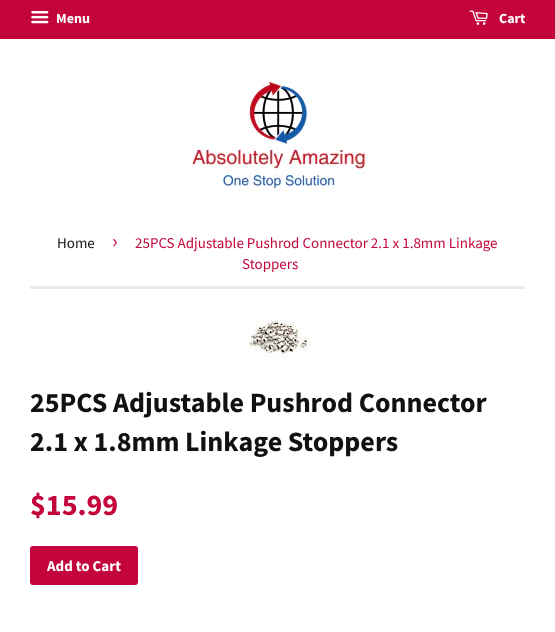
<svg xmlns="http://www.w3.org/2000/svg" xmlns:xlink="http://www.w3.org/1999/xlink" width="555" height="632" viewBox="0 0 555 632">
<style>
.cls-1{font:bold 14px Source Sans Pro;fill:#ffffff}
.cls-2{font:15px Source Sans Pro;fill:#111111}
.cls-3{font:21px Source Sans Pro;fill:#c3053b}
.cls-4{font:15px Source Sans Pro;fill:#c3053b}
.cls-5{font:bold 28px Source Sans Pro;fill:#111111}
.cls-6{font:bold 30px Source Sans Pro;fill:#c3053b}
.cls-7{font:bold 15px Source Sans Pro;fill:#ffffff}
</style>
<rect width="100%" height="100%" fill="#ffffff"/>
<rect fill="#c3053b" x="0" y="0" width="555" height="39"/>
<image xlink:href="image0.png" x="31" y="11" width="18" height="13"/>
<image xlink:href="image1.png" x="469" y="10" width="19" height="15"/>
<image xlink:href="image2.png" x="191" y="79" width="176" height="111"/>
<rect fill="#eaeaea" x="30" y="286" width="495" height="3"/>
<image xlink:href="image3.png" x="246" y="320" width="64" height="39"/>
<rect fill="#c3053b" x="30" y="546" width="108" height="39" rx="3"/>
<image xlink:href="image4.png" x="85" y="631" width="54" height="1"/>
<image xlink:href="image5.png" x="270" y="631" width="10" height="1"/>
<text class="cls-1" x="56" y="23">Menu</text>
<text class="cls-1" x="499" y="23">Cart</text>
<text class="cls-2" x="57" y="248">Home</text>
<text class="cls-3" x="112" y="248">›</text>
<text class="cls-4" x="135" y="248">25PCS Adjustable Pushrod Connector 2.1 x 1.8mm Linkage</text>
<text class="cls-4" x="242" y="269">Stoppers</text>
<text class="cls-5"><tspan x="30" y="412">25PCS Adjustable Pushrod Connector</tspan><tspan x="30" y="451">2.1 x 1.8mm Linkage Stoppers</tspan></text>
<text class="cls-6" x="30" y="515">$15.99</text>
<text class="cls-7" x="47" y="571">Add to Cart</text>
</svg>
